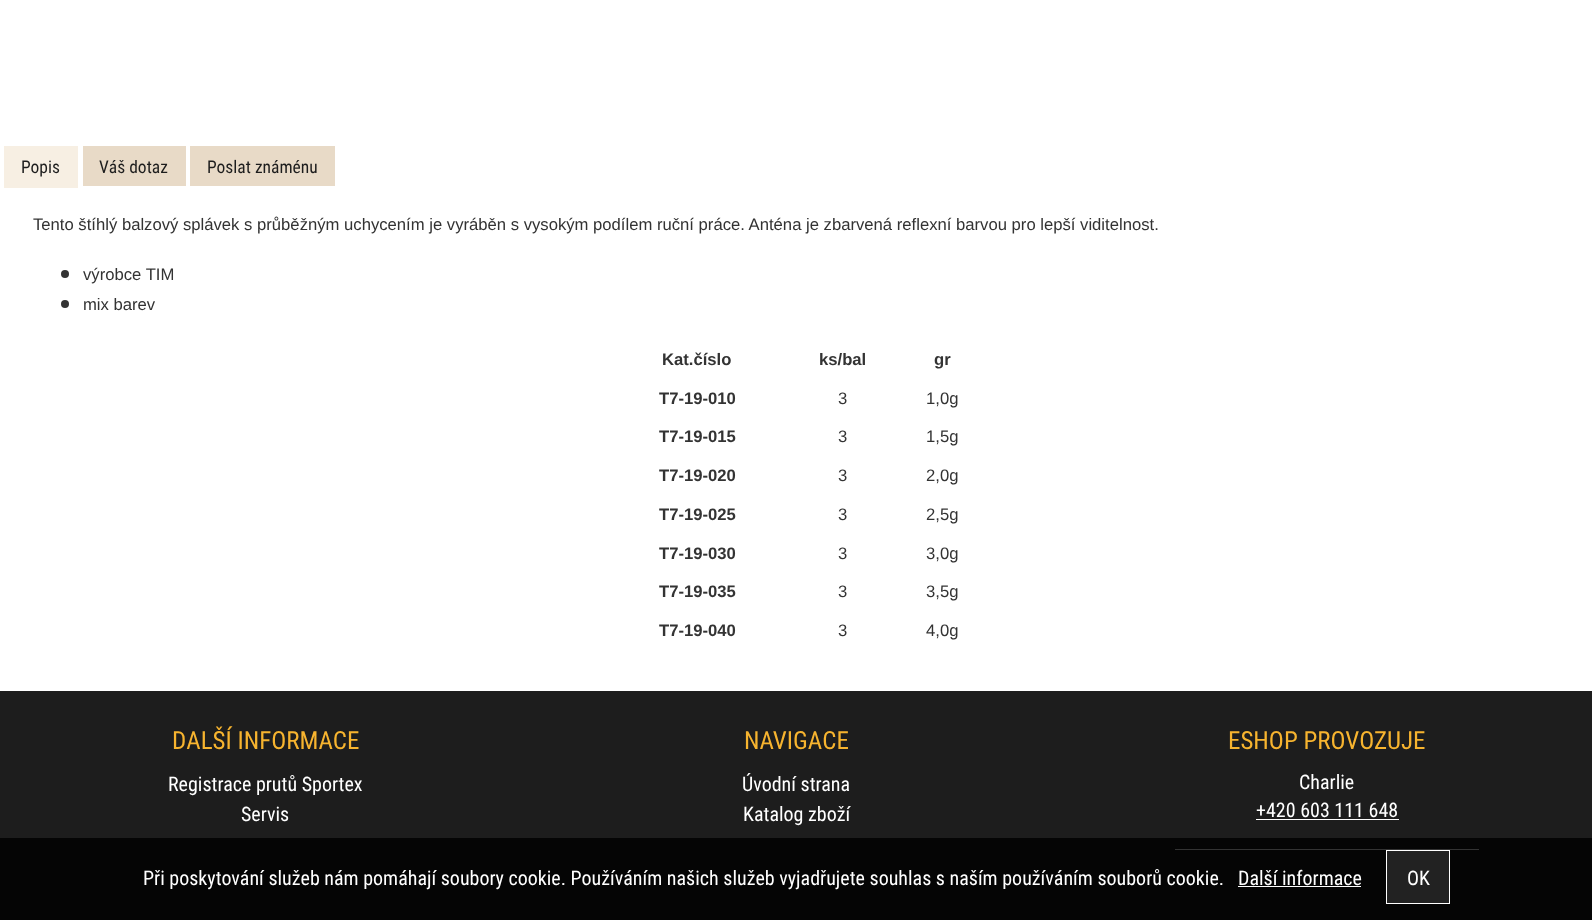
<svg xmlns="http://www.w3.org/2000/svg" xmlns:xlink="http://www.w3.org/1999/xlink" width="1592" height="920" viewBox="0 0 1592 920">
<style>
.cls-1{font:17.5px Roboto Condensed;fill:#1d1d1d}
.cls-2{font:16.67px Liberation Sans;fill:#333333}
.cls-3{font:bold 16.67px Liberation Sans;fill:#333333}
.cls-4{font:25px Roboto Condensed;fill:#f7b42f}
.cls-5{font:20px Roboto Condensed;fill:#ffffff}
</style>
<rect width="100%" height="100%" fill="#ffffff"/>
<rect fill="#f7efe3" x="4" y="146" width="74" height="42"/>
<rect fill="#e8dac7" x="83" y="146" width="103" height="40"/>
<rect fill="#e8dac7" x="190" y="146" width="145" height="40"/>
<circle fill="#333333" cx="65" cy="274" r="4"/>
<circle fill="#333333" cx="65" cy="304" r="4"/>
<rect fill="#1d1d1d" x="0" y="691" width="1592" height="229"/>
<rect fill="#ffffff" x="1256" y="819" width="143" height="1"/>
<rect fill="#ffffff" x="1175" y="849" width="304" height="1"/>
<rect fill="#000000" fill-opacity="0.8" x="0" y="838" width="1592" height="82"/>
<rect fill="#ffffff" x="1238" y="886" width="123" height="1"/>
<rect fill="#222222" stroke="#ffffff" x="1386.5" y="850.5" width="63" height="53"/>
<text class="cls-1" x="21" y="173">Popis</text>
<text class="cls-1" x="99" y="173">Váš dotaz</text>
<text class="cls-1" x="207" y="173">Poslat známénu</text>
<text class="cls-2" x="33" y="230">Tento štíhlý balzový splávek s průběžným uchycením je vyráběn s vysokým podílem ruční práce. Anténa je zbarvená reflexní barvou pro lepší viditelnost.</text>
<text class="cls-2"><tspan x="83" y="280">výrobce TIM</tspan><tspan x="83" y="310">mix barev</tspan></text>
<text class="cls-3" x="662" y="365">Kat.číslo</text>
<text class="cls-3" x="819" y="365">ks/bal</text>
<text class="cls-3" x="934" y="365">gr</text>
<text class="cls-3" x="659" y="404">T7-19-010</text>
<text class="cls-2" x="838" y="404">3</text>
<text class="cls-2" x="926" y="404">1,0g</text>
<text class="cls-3" x="659" y="442">T7-19-015</text>
<text class="cls-2" x="838" y="442">3</text>
<text class="cls-2" x="926" y="442">1,5g</text>
<text class="cls-3" x="659" y="481">T7-19-020</text>
<text class="cls-2" x="838" y="481">3</text>
<text class="cls-2" x="926" y="481">2,0g</text>
<text class="cls-3" x="659" y="520">T7-19-025</text>
<text class="cls-2" x="838" y="520">3</text>
<text class="cls-2" x="926" y="520">2,5g</text>
<text class="cls-3" x="659" y="559">T7-19-030</text>
<text class="cls-2" x="838" y="559">3</text>
<text class="cls-2" x="926" y="559">3,0g</text>
<text class="cls-3" x="659" y="597">T7-19-035</text>
<text class="cls-2" x="838" y="597">3</text>
<text class="cls-2" x="926" y="597">3,5g</text>
<text class="cls-3" x="659" y="636">T7-19-040</text>
<text class="cls-2" x="838" y="636">3</text>
<text class="cls-2" x="926" y="636">4,0g</text>
<text class="cls-4" x="172" y="749">DALŠÍ INFORMACE</text>
<text class="cls-5" x="168" y="791">Registrace prutů Sportex</text>
<text class="cls-5" x="241" y="821">Servis</text>
<text class="cls-4" x="744" y="749">NAVIGACE</text>
<text class="cls-5" x="742" y="791">Úvodní strana</text>
<text class="cls-5" x="743" y="821">Katalog zboží</text>
<text class="cls-4" x="1228" y="749">ESHOP PROVOZUJE</text>
<text class="cls-5" x="1299" y="789">Charlie</text>
<text class="cls-5" x="1256" y="817">+420 603 111 648</text>
<text class="cls-5" x="143" y="885">Při poskytování služeb nám pomáhají soubory cookie. Používáním našich služeb vyjadřujete souhlas s naším používáním souborů cookie.</text>
<text class="cls-5" x="1238" y="885">Další informace</text>
<text class="cls-5" x="1407" y="885">OK</text>
</svg>
